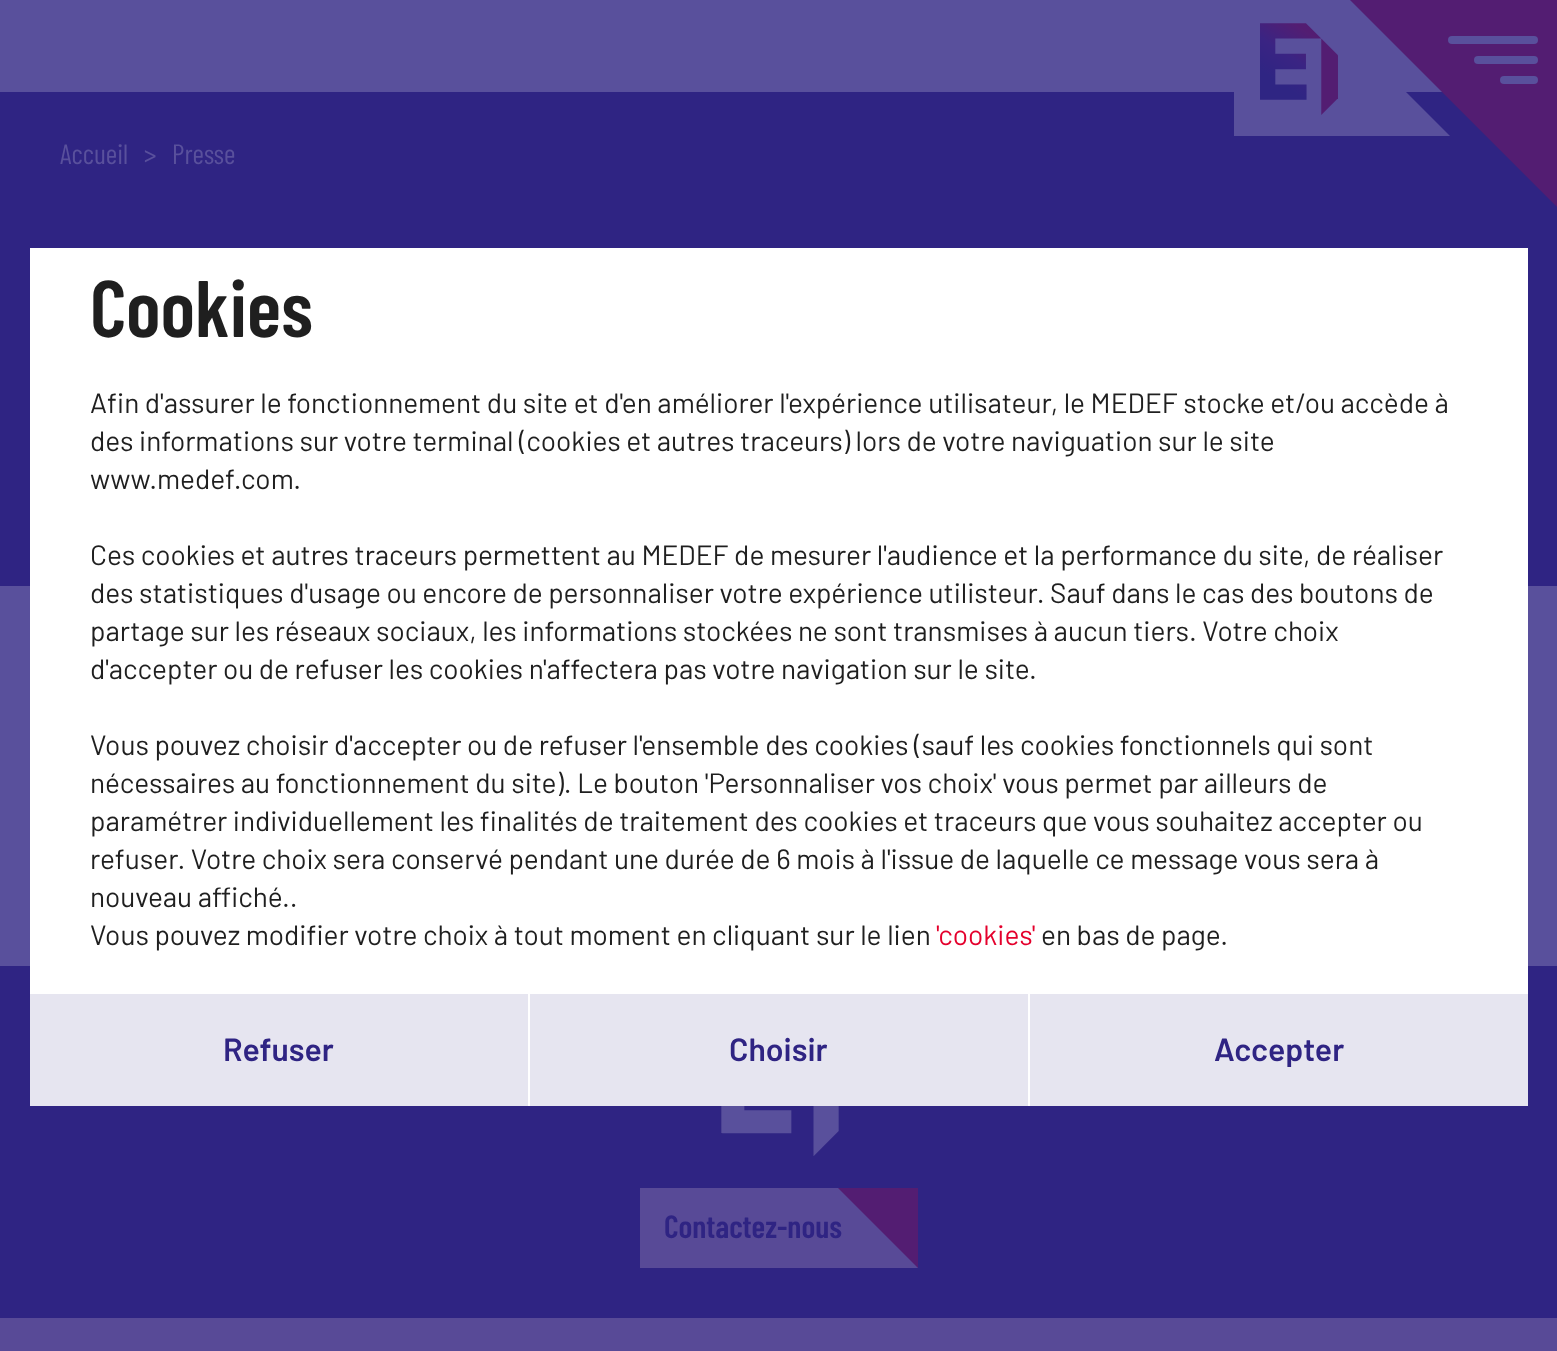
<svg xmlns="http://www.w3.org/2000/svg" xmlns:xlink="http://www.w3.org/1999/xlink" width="1557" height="1351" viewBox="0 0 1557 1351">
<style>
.cls-1{font:28px Barlow Condensed;fill:#59509c}
.cls-2{font:600 32px Barlow Condensed;fill:#2f2483}
.cls-3{font:600 80px Barlow Condensed;fill:#1f1f1f}
.cls-4{font:28px Barlow;fill:#1f1f1f}
.cls-5{font:28px Barlow;fill:#e4002c}
.cls-6{font:600 32px Barlow;fill:#2f2483}
</style>
<rect width="100%" height="100%" fill="#59509c"/>
<rect fill="#2f2483" x="0" y="92" width="1557" height="494"/>
<image xlink:href="image0.png" x="1234" y="23" width="216" height="113"/>
<path fill="#531d72" d="M1348-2H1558V208Z"/>
<path fill="none" stroke="#59509c" stroke-width="8" stroke-linecap="round" d="M1452 40H1534"/>
<path fill="none" stroke="#59509c" stroke-width="8" stroke-linecap="round" d="M1478 60H1534"/>
<path fill="none" stroke="#59509c" stroke-width="8" stroke-linecap="round" d="M1504 80H1534"/>
<rect fill="#2f2483" x="0" y="966" width="1557" height="352"/>
<image xlink:href="image1.png" x="721" y="1106" width="118" height="50"/>
<rect fill="#584a97" x="640" y="1188" width="278" height="80"/>
<rect fill="#584a97" x="0" y="1318" width="1557" height="33"/>
<rect fill="#ffffff" x="30" y="248" width="1498" height="746"/>
<rect fill="#e6e5f0" x="30" y="994" width="498" height="112"/>
<rect fill="#ffffff" x="528" y="994" width="2" height="112"/>
<rect fill="#e6e5f0" x="530" y="994" width="498" height="112"/>
<rect fill="#ffffff" x="1028" y="994" width="2" height="112"/>
<rect fill="#e6e5f0" x="1030" y="994" width="498" height="112"/>
<text class="cls-1" x="60" y="164">Accueil</text>
<text class="cls-1" x="144" y="164">&gt;</text>
<text class="cls-1" x="172" y="164">Presse</text>
<text class="cls-2" x="664" y="1238">Contactez-nous</text>
<path fill="#531d72" d="M838 1188H918V1268Z"/>
<text class="cls-3" x="90" y="337">Cookies</text>
<text class="cls-4"><tspan x="90" y="413">Afin d'assurer le fonctionnement du site et d'en améliorer l'expérience utilisateur, le MEDEF stocke et/ou accède à</tspan><tspan x="90" y="451">des informations sur votre terminal (cookies et autres traceurs) lors de votre naviguation sur le site</tspan><tspan x="90" y="489">www.medef.com.</tspan></text>
<text class="cls-4"><tspan x="90" y="565">Ces cookies et autres traceurs permettent au MEDEF de mesurer l'audience et la performance du site, de réaliser</tspan><tspan x="90" y="603">des statistiques d'usage ou encore de personnaliser votre expérience utilisteur. Sauf dans le cas des boutons de</tspan><tspan x="90" y="641">partage sur les réseaux sociaux, les informations stockées ne sont transmises à aucun tiers. Votre choix</tspan><tspan x="90" y="679">d'accepter ou de refuser les cookies n'affectera pas votre navigation sur le site.</tspan></text>
<text class="cls-4"><tspan x="90" y="755">Vous pouvez choisir d'accepter ou de refuser l'ensemble des cookies (sauf les cookies fonctionnels qui sont</tspan><tspan x="90" y="793">nécessaires au fonctionnement du site). Le bouton 'Personnaliser vos choix' vous permet par ailleurs de</tspan><tspan x="90" y="831">paramétrer individuellement les finalités de traitement des cookies et traceurs que vous souhaitez accepter ou</tspan><tspan x="90" y="869">refuser. Votre choix sera conservé pendant une durée de 6 mois à l'issue de laquelle ce message vous sera à</tspan><tspan x="90" y="907">nouveau affiché..</tspan><tspan x="90" y="945">Vous pouvez modifier votre choix à tout moment en cliquant sur le lien</tspan></text>
<text class="cls-5" x="936" y="945">'cookies'</text>
<text class="cls-4" x="1041" y="945">en bas de page.</text>
<text class="cls-6" x="223" y="1061">Refuser</text>
<text class="cls-6" x="729" y="1061">Choisir</text>
<text class="cls-6" x="1214" y="1061">Accepter</text>
</svg>
